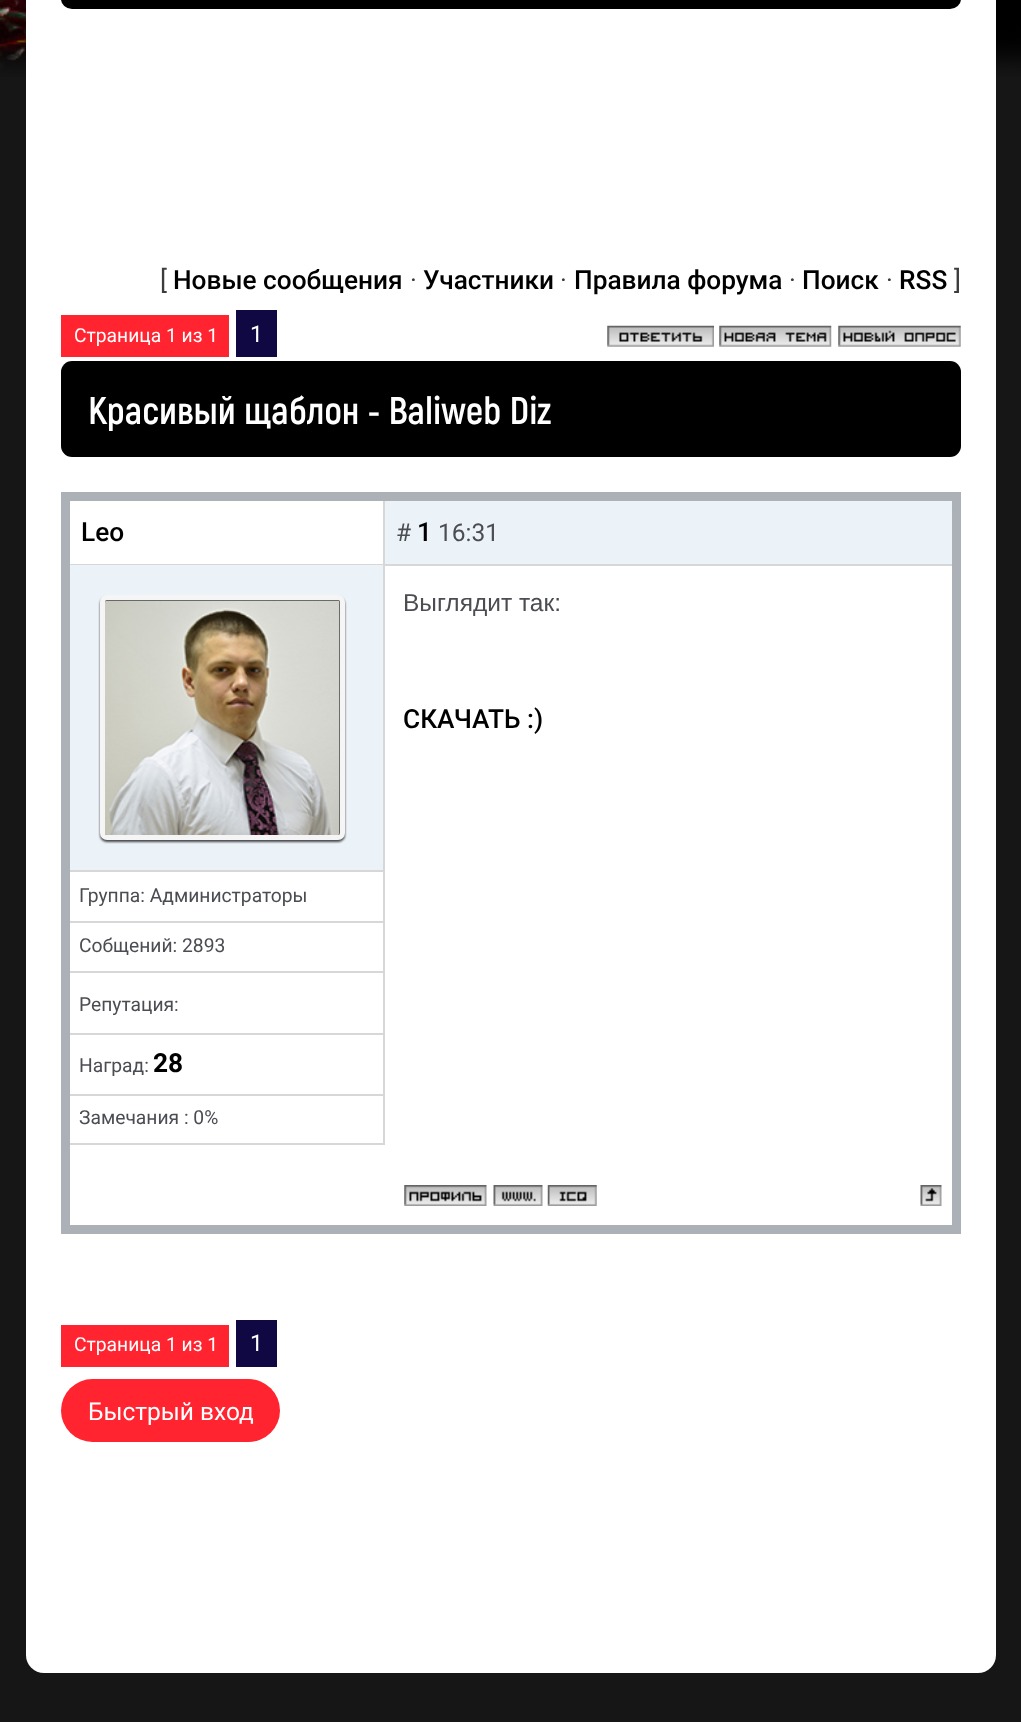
<svg xmlns="http://www.w3.org/2000/svg" xmlns:xlink="http://www.w3.org/1999/xlink" width="1021" height="1722" viewBox="0 0 1021 1722">
<style>
.cls-1{font:26.25px Roboto;fill:#3c3c3c}
.cls-2{font:500 26.25px Roboto;fill:#000000}
.cls-3{font:19.25px Roboto;fill:#ffffff}
.cls-4{font:23px Roboto;fill:#ffffff}
.cls-5{font:bold 38.5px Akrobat;fill:#ffffff}
.cls-6{font:19.25px Roboto;fill:#4b4d52}
.cls-7{font:bold 26.25px Roboto;fill:#000000}
.cls-8{font:24.5px Roboto;fill:#4b4d52}
.cls-9{font:24.5px Liberation Sans;fill:#4b4d52}
.cls-10{font:24.5px Roboto;fill:#ffffff}
</style>
<rect width="100%" height="100%" fill="#161616"/>
<image xlink:href="image0.png" x="0" y="0" width="1021" height="77"/>
<rect fill="#ffffff" x="26" y="-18" width="970" height="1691" rx="18"/>
<rect fill="#000000" x="61" y="-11" width="900" height="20" rx="11"/>
<rect fill="#ff242f" x="61" y="315" width="168" height="42"/>
<rect fill="#0f0842" x="236" y="310" width="41" height="47"/>
<image xlink:href="image1.png" x="607" y="325" width="107" height="22"/>
<image xlink:href="image2.png" x="719" y="325" width="113" height="22"/>
<image xlink:href="image3.png" x="838" y="325" width="123" height="22"/>
<rect fill="#000000" x="61" y="361" width="900" height="96" rx="11"/>
<rect fill="none" stroke="#abb1b6" stroke-width="9" x="65.5" y="496.5" width="891" height="733"/>
<rect fill="#d7d7d7" x="383" y="501" width="2" height="644"/>
<rect fill="#d7d7d7" x="70" y="564" width="313" height="1"/>
<rect fill="#ebf2f8" x="70" y="565" width="313" height="305"/>
<rect fill="#d7d7d7" x="70" y="870" width="313" height="2"/>
<rect fill="#000000" fill-opacity="0.7" filter="blur(1px)" x="100" y="597" width="245" height="245" rx="7"/>
<rect fill="none" stroke="#f5f5f5" stroke-width="5" x="102.5" y="597.5" width="240" height="240" rx="4.5"/>
<image xlink:href="image4.png" x="105" y="600" width="235" height="235"/>
<rect fill="#d7d7d7" x="70" y="921" width="313" height="2"/>
<rect fill="#d7d7d7" x="70" y="971" width="313" height="2"/>
<rect fill="#d7d7d7" x="70" y="1033" width="313" height="2"/>
<rect fill="#d7d7d7" x="70" y="1094" width="313" height="2"/>
<rect fill="#d7d7d7" x="70" y="1143" width="313" height="2"/>
<rect fill="#ebf2f8" x="385" y="501" width="567" height="63"/>
<rect fill="#d7d7d7" x="385" y="564" width="567" height="2"/>
<image xlink:href="image5.png" x="404" y="1185" width="83" height="21"/>
<image xlink:href="image6.png" x="493" y="1185" width="50" height="21"/>
<image xlink:href="image7.png" x="547" y="1185" width="50" height="21"/>
<image xlink:href="image8.png" x="920" y="1185" width="22" height="21"/>
<rect fill="#ff242f" x="61" y="1325" width="168" height="42"/>
<rect fill="#0f0842" x="236" y="1320" width="41" height="47"/>
<rect fill="#ff242f" x="61" y="1379" width="219" height="63" rx="31.5"/>
<text class="cls-1" x="160" y="289">[</text>
<text class="cls-2" x="173" y="289">Новые сообщения</text>
<text class="cls-1" x="410" y="289">·</text>
<text class="cls-2" x="423" y="289">Участники</text>
<text class="cls-1" x="560" y="289">·</text>
<text class="cls-2" x="574" y="289">Правила форума</text>
<text class="cls-1" x="789" y="289">·</text>
<text class="cls-2" x="802" y="289">Поиск</text>
<text class="cls-1" x="886" y="289">·</text>
<text class="cls-2" x="899" y="289">RSS</text>
<text class="cls-1" x="954" y="289">]</text>
<text class="cls-3" x="74" y="342">Страница 1 из 1</text>
<text class="cls-4" x="250" y="342">1</text>
<text class="cls-5" x="88" y="424">Красивый щаблон - Baliweb Diz</text>
<text class="cls-2" x="81" y="541">Leo</text>
<text class="cls-6" x="79" y="902">Группа: Администраторы</text>
<text class="cls-6" x="79" y="952">Собщений: 2893</text>
<text class="cls-6" x="79" y="1011">Репутация:</text>
<text class="cls-6" x="79" y="1072">Наград:</text>
<text class="cls-7" x="153" y="1072">28</text>
<text class="cls-6" x="79" y="1124">Замечания : 0%</text>
<text class="cls-8" x="396" y="541">#</text>
<text class="cls-2" x="417" y="541">1</text>
<text class="cls-8" x="438" y="541">16:31</text>
<text class="cls-9" x="403" y="611">Выглядит так:</text>
<text class="cls-2" x="403" y="728">СКАЧАТЬ :)</text>
<text class="cls-3" x="74" y="1351">Страница 1 из 1</text>
<text class="cls-4" x="250" y="1351">1</text>
<text class="cls-10" x="88" y="1420">Быстрый вход</text>
</svg>
